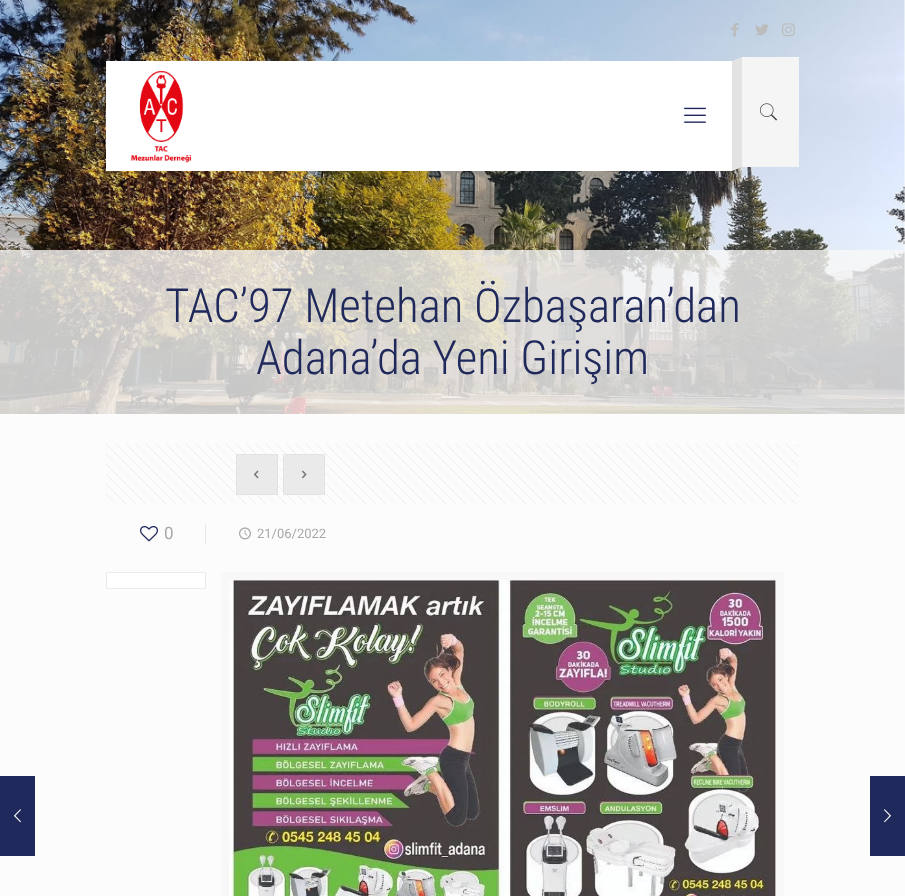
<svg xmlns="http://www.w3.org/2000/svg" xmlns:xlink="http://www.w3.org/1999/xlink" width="905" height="896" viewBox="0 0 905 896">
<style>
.cls-1{font:300 47px Roboto Condensed;fill:#20295b}
.cls-2{font:17px Roboto;fill:#a8a8a8}
.cls-3{font:13px Roboto;fill:#a8a8a8}
</style>
<rect width="100%" height="100%" fill="#fcfcfc"/>
<image xlink:href="image0.png" x="0" y="0" width="905" height="414"/>
<image xlink:href="image1.png" x="731" y="23" width="8" height="14"/>
<image xlink:href="image2.png" x="755" y="24" width="14" height="12"/>
<image xlink:href="image3.png" x="782" y="23" width="13" height="14"/>
<rect fill="#ffffff" x="106" y="61" width="626" height="110"/>
<image xlink:href="image4.png" x="130" y="70" width="62" height="93"/>
<image xlink:href="image5.png" x="684" y="107" width="22" height="16"/>
<rect fill="#f5f5f5" x="742" y="57" width="57" height="110"/>
<path fill="#e3e3e3" d="M732 61L742 57V167L732 171Z"/>
<image xlink:href="image6.png" x="759" y="103" width="19" height="18"/>
<rect fill="#f7f7f7" fill-opacity="0.8" x="0" y="250" width="905" height="164"/>
<image xlink:href="image7.png" x="106" y="444" width="693" height="60"/>
<rect fill="#f7f7f7" x="236" y="454" width="42" height="41" rx="5"/>
<rect fill="none" stroke="#000000" stroke-opacity="0.03" x="236.5" y="454.5" width="41" height="40"/>
<rect fill="#000000" fill-opacity="0.05" x="236" y="454" width="42" height="41"/>
<image xlink:href="image8.png" x="254" y="470" width="5" height="9"/>
<rect fill="#f7f7f7" x="283" y="454" width="42" height="41" rx="5"/>
<rect fill="none" stroke="#000000" stroke-opacity="0.03" x="283.5" y="454.5" width="41" height="40"/>
<rect fill="#000000" fill-opacity="0.05" x="283" y="454" width="42" height="41"/>
<image xlink:href="image9.png" x="302" y="470" width="5" height="9"/>
<image xlink:href="image10.png" x="140" y="526" width="18" height="16"/>
<rect fill="#e8e8e8" x="205" y="524" width="1" height="20"/>
<image xlink:href="image11.png" x="239" y="527" width="12" height="13"/>
<rect fill="#ffffff" stroke="#ebebeb" x="106.5" y="572.5" width="99" height="16"/>
<rect fill="none" stroke="#f8f8f8" stroke-width="8" x="225" y="576" width="555" height="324"/>
<image xlink:href="image12.png" x="229" y="580" width="547" height="316"/>
<rect fill="#20295b" x="0" y="776" width="35" height="80"/>
<image xlink:href="image13.png" x="14" y="809" width="7" height="14"/>
<rect fill="#20295b" x="870" y="776" width="35" height="80"/>
<image xlink:href="image14.png" x="884" y="809" width="7" height="14"/>
<text class="cls-1" x="165" y="322">TAC’97 Metehan Özbaşaran’dan</text>
<text class="cls-1" x="256" y="374">Adana’da Yeni Girişim</text>
<text class="cls-2" x="164" y="539">0</text>
<text class="cls-3" x="257" y="538">21/06/2022</text>
</svg>
